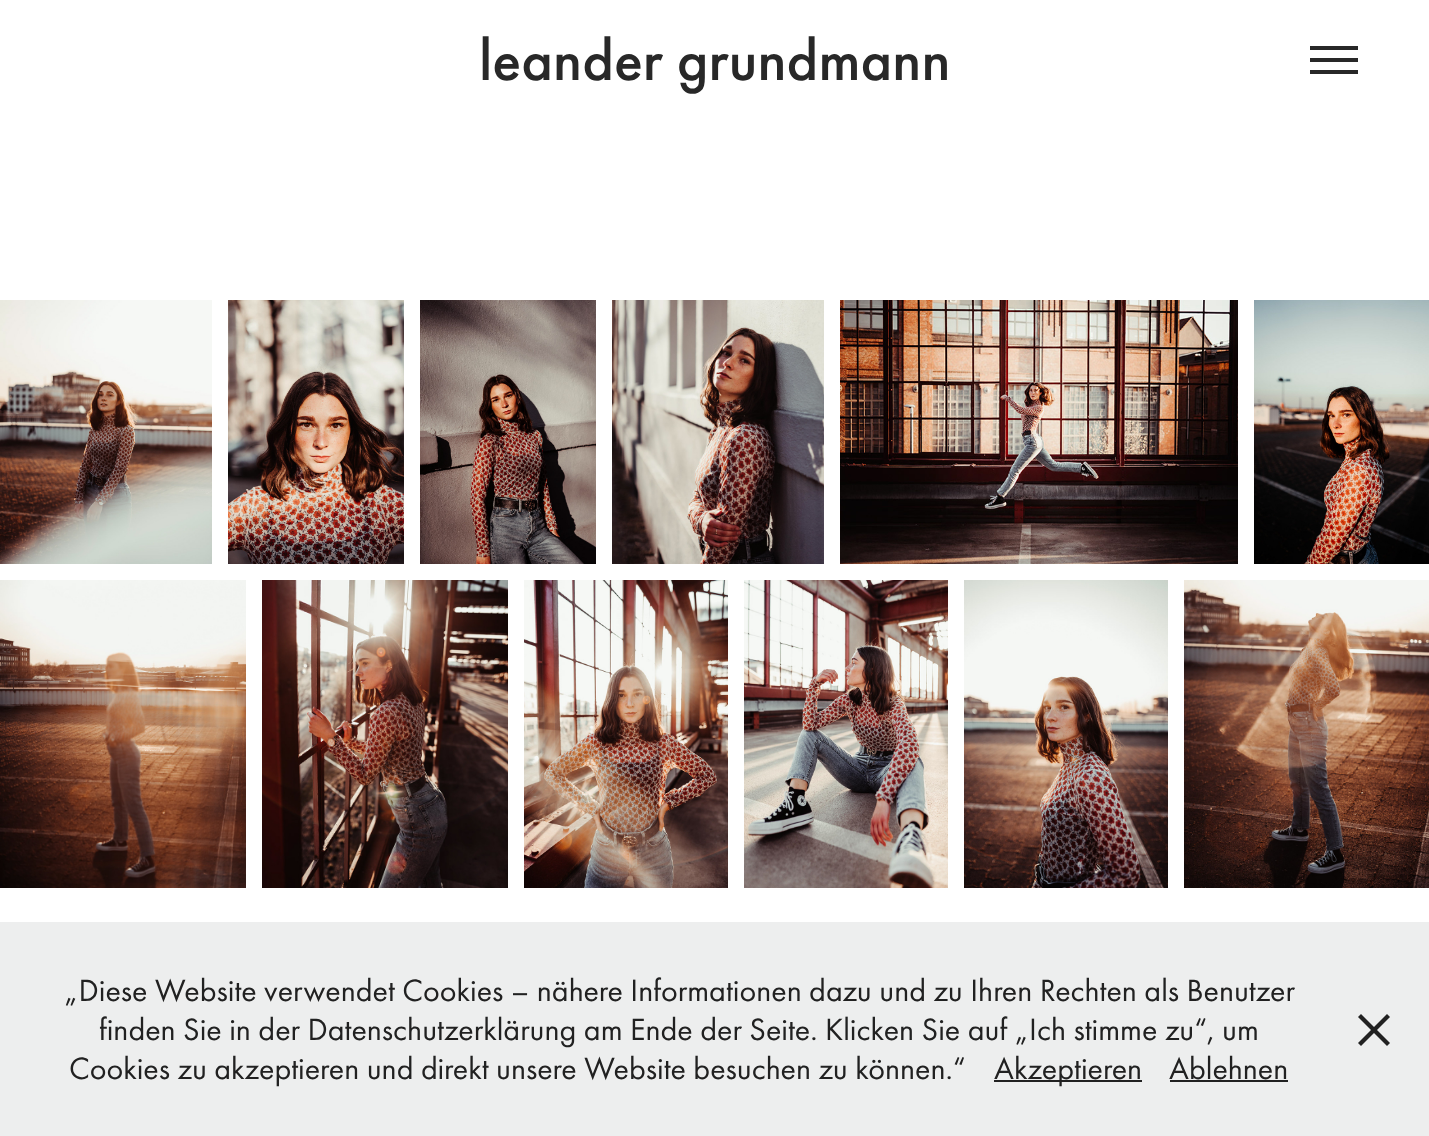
<svg xmlns="http://www.w3.org/2000/svg" xmlns:xlink="http://www.w3.org/1999/xlink" width="1429" height="1136" viewBox="0 0 1429 1136">
<style>
.cls-1{font:500 60px Futura PT;fill:#282828}
.cls-2{font:32px Futura PT;fill:#212121}
</style>
<rect width="100%" height="100%" fill="#ffffff"/>
<rect fill="#282828" x="1310" y="46" width="48" height="4"/>
<rect fill="#282828" x="1310" y="58" width="48" height="4"/>
<rect fill="#282828" x="1310" y="70" width="48" height="4"/>
<image xlink:href="image0.png" x="0" y="300" width="212" height="264"/>
<image xlink:href="image1.png" x="228" y="300" width="176" height="264"/>
<image xlink:href="image2.png" x="420" y="300" width="176" height="264"/>
<image xlink:href="image3.png" x="612" y="300" width="212" height="264"/>
<image xlink:href="image4.png" x="840" y="300" width="398" height="264"/>
<image xlink:href="image5.png" x="1254" y="300" width="175" height="264"/>
<image xlink:href="image6.png" x="0" y="580" width="246" height="308"/>
<image xlink:href="image7.png" x="262" y="580" width="246" height="308"/>
<image xlink:href="image8.png" x="524" y="580" width="204" height="308"/>
<image xlink:href="image9.png" x="744" y="580" width="204" height="308"/>
<image xlink:href="image10.png" x="964" y="580" width="204" height="308"/>
<image xlink:href="image11.png" x="1184" y="580" width="245" height="308"/>
<rect fill="#edeeee" x="0" y="922" width="1429" height="214"/>
<rect fill="#212121" x="994" y="1080" width="148" height="2"/>
<rect fill="#212121" x="1170" y="1080" width="118" height="2"/>
<path fill="#212121" d="M1358 1017L1361 1014L1390 1043L1387 1046Z"/>
<path fill="#212121" d="M1361 1046L1358 1043L1387 1014L1390 1017Z"/>
<text class="cls-1" x="479" y="80">leander grundmann</text>
<text class="cls-2" x="64" y="1001">„Diese Website verwendet Cookies – nähere Informationen dazu und zu Ihren Rechten als Benutzer</text>
<text class="cls-2" x="99" y="1040">finden Sie in der Datenschutzerklärung am Ende der Seite. Klicken Sie auf „Ich stimme zu“, um</text>
<text class="cls-2" x="69" y="1079">Cookies zu akzeptieren und direkt unsere Website besuchen zu können.“</text>
<text class="cls-2" x="994" y="1079">Akzeptieren</text>
<text class="cls-2" x="1169" y="1079">Ablehnen</text>
</svg>
